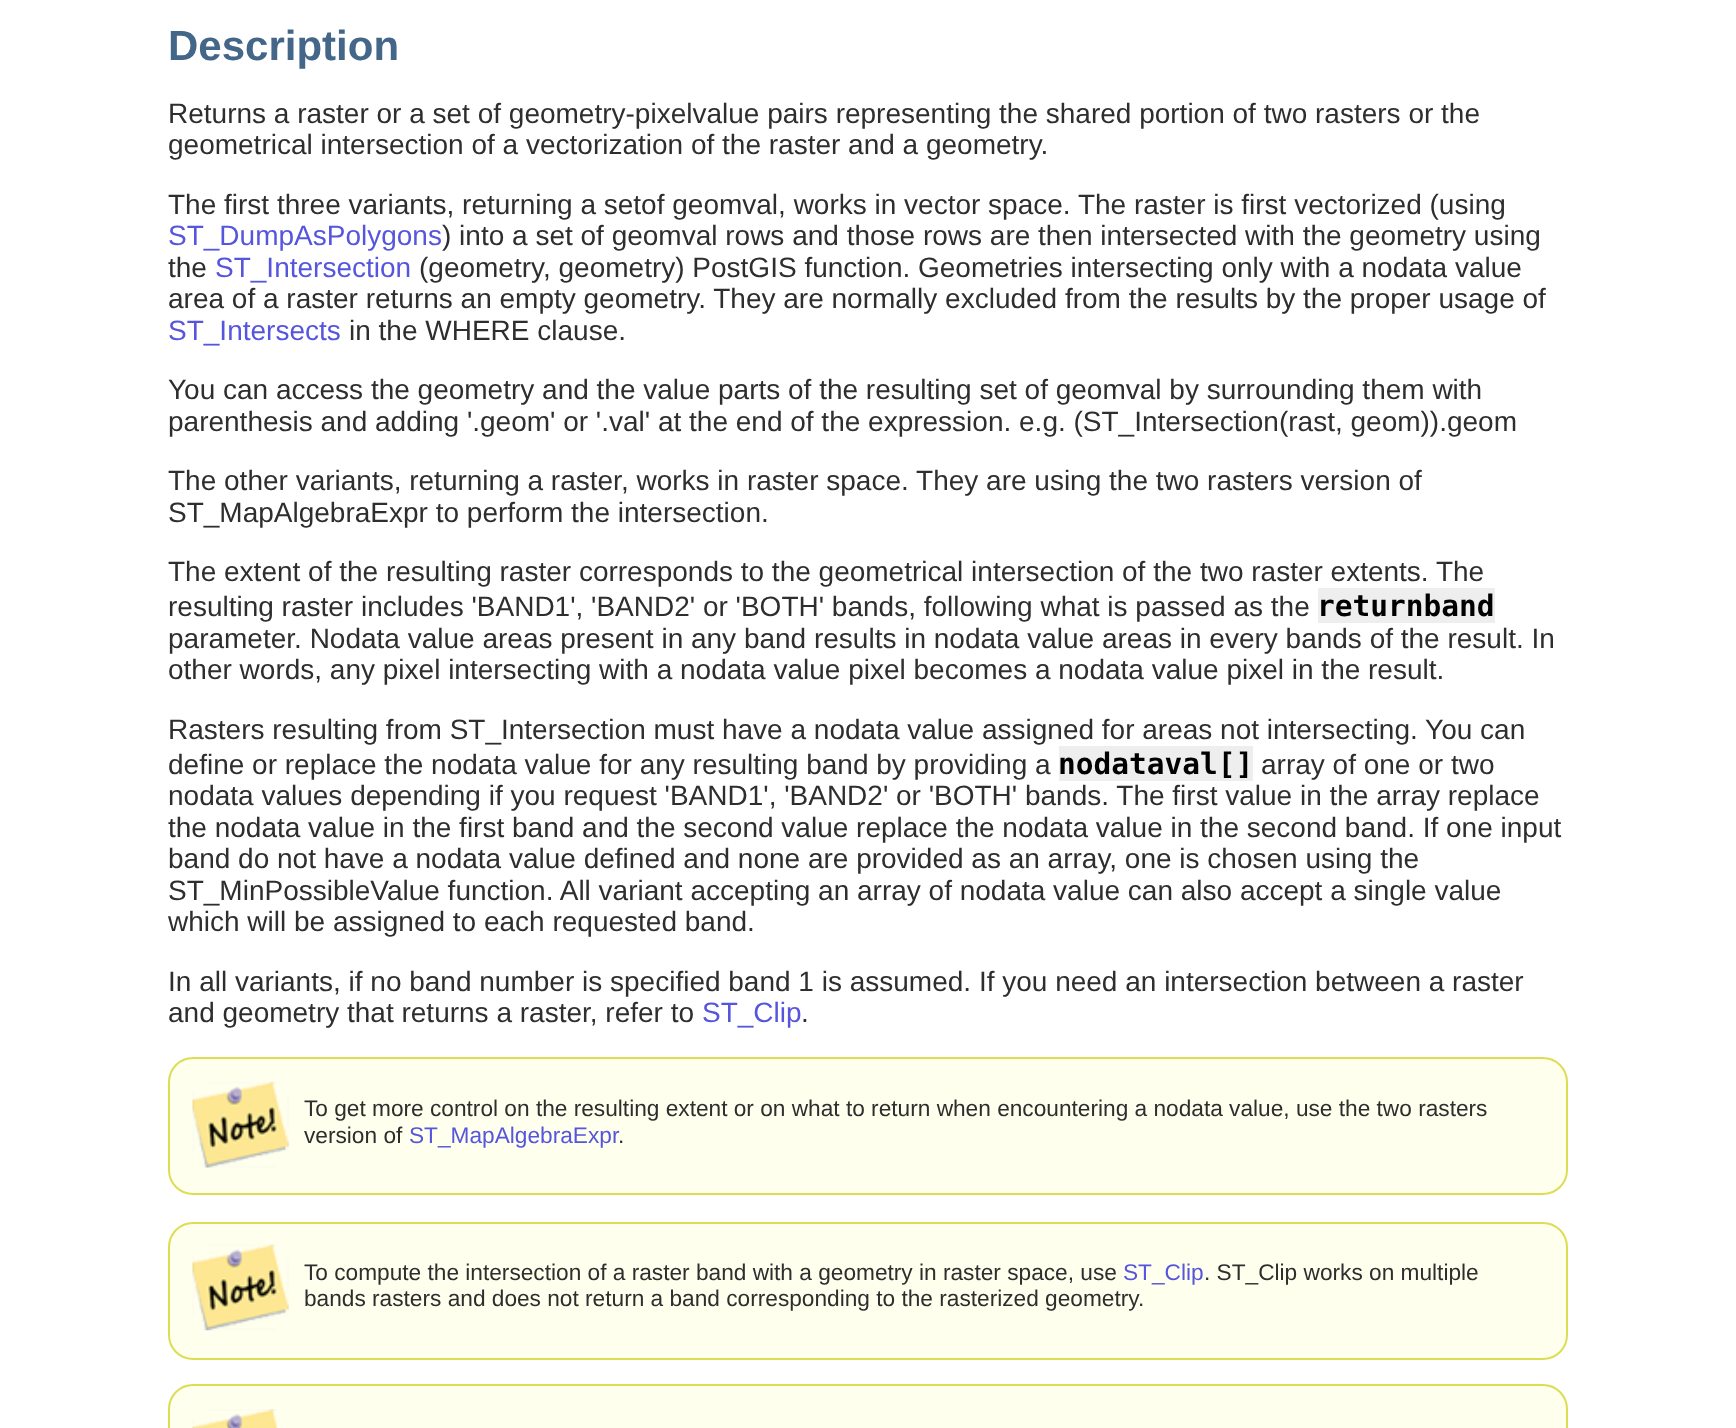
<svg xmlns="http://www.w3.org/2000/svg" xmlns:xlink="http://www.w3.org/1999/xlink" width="1736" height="1428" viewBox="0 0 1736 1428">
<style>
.cls-1{font:bold 42px Liberation Sans;fill:#446688}
.cls-2{font:28px Liberation Sans;fill:#2e2e2e}
.cls-3{font:28px Liberation Sans;fill:#5555dd}
.cls-4{font:bold 29.5px DejaVu Sans Mono;fill:#000000}
.cls-5{font:22.68px Liberation Sans;fill:#2e2e2e}
.cls-6{font:22.68px Liberation Sans;fill:#5555dd}
</style>
<rect width="100%" height="100%" fill="#ffffff"/>
<rect fill="#eeeeee" x="1318" y="588" width="177" height="35"/>
<rect fill="#eeeeee" x="1059" y="746" width="194" height="35"/>
<rect fill="#ffffee" stroke="#dddd55" stroke-width="2" x="169" y="1058" width="1398" height="136" rx="24"/>
<image xlink:href="image0.png" x="192" y="1081" width="97" height="87"/>
<rect fill="#ffffee" stroke="#dddd55" stroke-width="2" x="169" y="1223" width="1398" height="136" rx="24"/>
<image xlink:href="image1.png" x="192" y="1244" width="97" height="87"/>
<rect fill="#ffffee" stroke="#dddd55" stroke-width="2" x="169" y="1385" width="1398" height="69" rx="24"/>
<image xlink:href="image2.png" x="192" y="1409" width="86" height="19"/>
<text class="cls-1" x="168" y="60">Description</text>
<text class="cls-2"><tspan x="168" y="123">Returns a raster or a set of geometry-pixelvalue pairs representing the shared portion of two rasters or the</tspan><tspan x="168" y="154">geometrical intersection of a vectorization of the raster and a geometry.</tspan></text>
<text class="cls-2" x="168" y="214">The first three variants, returning a setof geomval, works in vector space. The raster is first vectorized (using</text>
<text class="cls-3" x="168" y="245">ST_DumpAsPolygons</text>
<text class="cls-2" x="442" y="245">) into a set of geomval rows and those rows are then intersected with the geometry using</text>
<text class="cls-2" x="168" y="277">the</text>
<text class="cls-3" x="215" y="277">ST_Intersection</text>
<text class="cls-2" x="419" y="277">(geometry, geometry) PostGIS function. Geometries intersecting only with a nodata value</text>
<text class="cls-2" x="168" y="308">area of a raster returns an empty geometry. They are normally excluded from the results by the proper usage of</text>
<text class="cls-3" x="168" y="340">ST_Intersects</text>
<text class="cls-2" x="349" y="340">in the WHERE clause.</text>
<text class="cls-2"><tspan x="168" y="399">You can access the geometry and the value parts of the resulting set of geomval by surrounding them with</tspan><tspan x="168" y="431">parenthesis and adding '.geom' or '.val' at the end of the expression. e.g. (ST_Intersection(rast, geom)).geom</tspan></text>
<text class="cls-2"><tspan x="168" y="490">The other variants, returning a raster, works in raster space. They are using the two rasters version of</tspan><tspan x="168" y="522">ST_MapAlgebraExpr to perform the intersection.</tspan></text>
<text class="cls-2"><tspan x="168" y="581">The extent of the resulting raster corresponds to the geometrical intersection of the two raster extents. The</tspan><tspan x="168" y="616">resulting raster includes 'BAND1', 'BAND2' or 'BOTH' bands, following what is passed as the</tspan></text>
<text class="cls-4" x="1317" y="616">returnband</text>
<text class="cls-2"><tspan x="168" y="648">parameter. Nodata value areas present in any band results in nodata value areas in every bands of the result. In</tspan><tspan x="168" y="679">other words, any pixel intersecting with a nodata value pixel becomes a nodata value pixel in the result.</tspan></text>
<text class="cls-2"><tspan x="168" y="739">Rasters resulting from ST_Intersection must have a nodata value assigned for areas not intersecting. You can</tspan><tspan x="168" y="774">define or replace the nodata value for any resulting band by providing a</tspan></text>
<text class="cls-4" x="1058" y="774">nodataval[]</text>
<text class="cls-2" x="1261" y="774">array of one or two</text>
<text class="cls-2"><tspan x="168" y="805">nodata values depending if you request 'BAND1', 'BAND2' or 'BOTH' bands. The first value in the array replace</tspan><tspan x="168" y="837">the nodata value in the first band and the second value replace the nodata value in the second band. If one input</tspan><tspan x="168" y="868">band do not have a nodata value defined and none are provided as an array, one is chosen using the</tspan><tspan x="168" y="900">ST_MinPossibleValue function. All variant accepting an array of nodata value can also accept a single value</tspan><tspan x="168" y="931">which will be assigned to each requested band.</tspan></text>
<text class="cls-2"><tspan x="168" y="991">In all variants, if no band number is specified band 1 is assumed. If you need an intersection between a raster</tspan><tspan x="168" y="1022">and geometry that returns a raster, refer to</tspan></text>
<text class="cls-3" x="702" y="1022">ST_Clip</text>
<text class="cls-2" x="801" y="1022">.</text>
<text class="cls-5"><tspan x="304" y="1116">To get more control on the resulting extent or on what to return when encountering a nodata value, use the two rasters</tspan><tspan x="304" y="1143">version of</tspan></text>
<text class="cls-6" x="409" y="1143">ST_MapAlgebraExpr</text>
<text class="cls-5" x="618" y="1143">.</text>
<text class="cls-5" x="304" y="1280">To compute the intersection of a raster band with a geometry in raster space, use</text>
<text class="cls-6" x="1123" y="1280">ST_Clip</text>
<text class="cls-5" x="1204" y="1280">. ST_Clip works on multiple</text>
<text class="cls-5" x="304" y="1306">bands rasters and does not return a band corresponding to the rasterized geometry.</text>
</svg>
